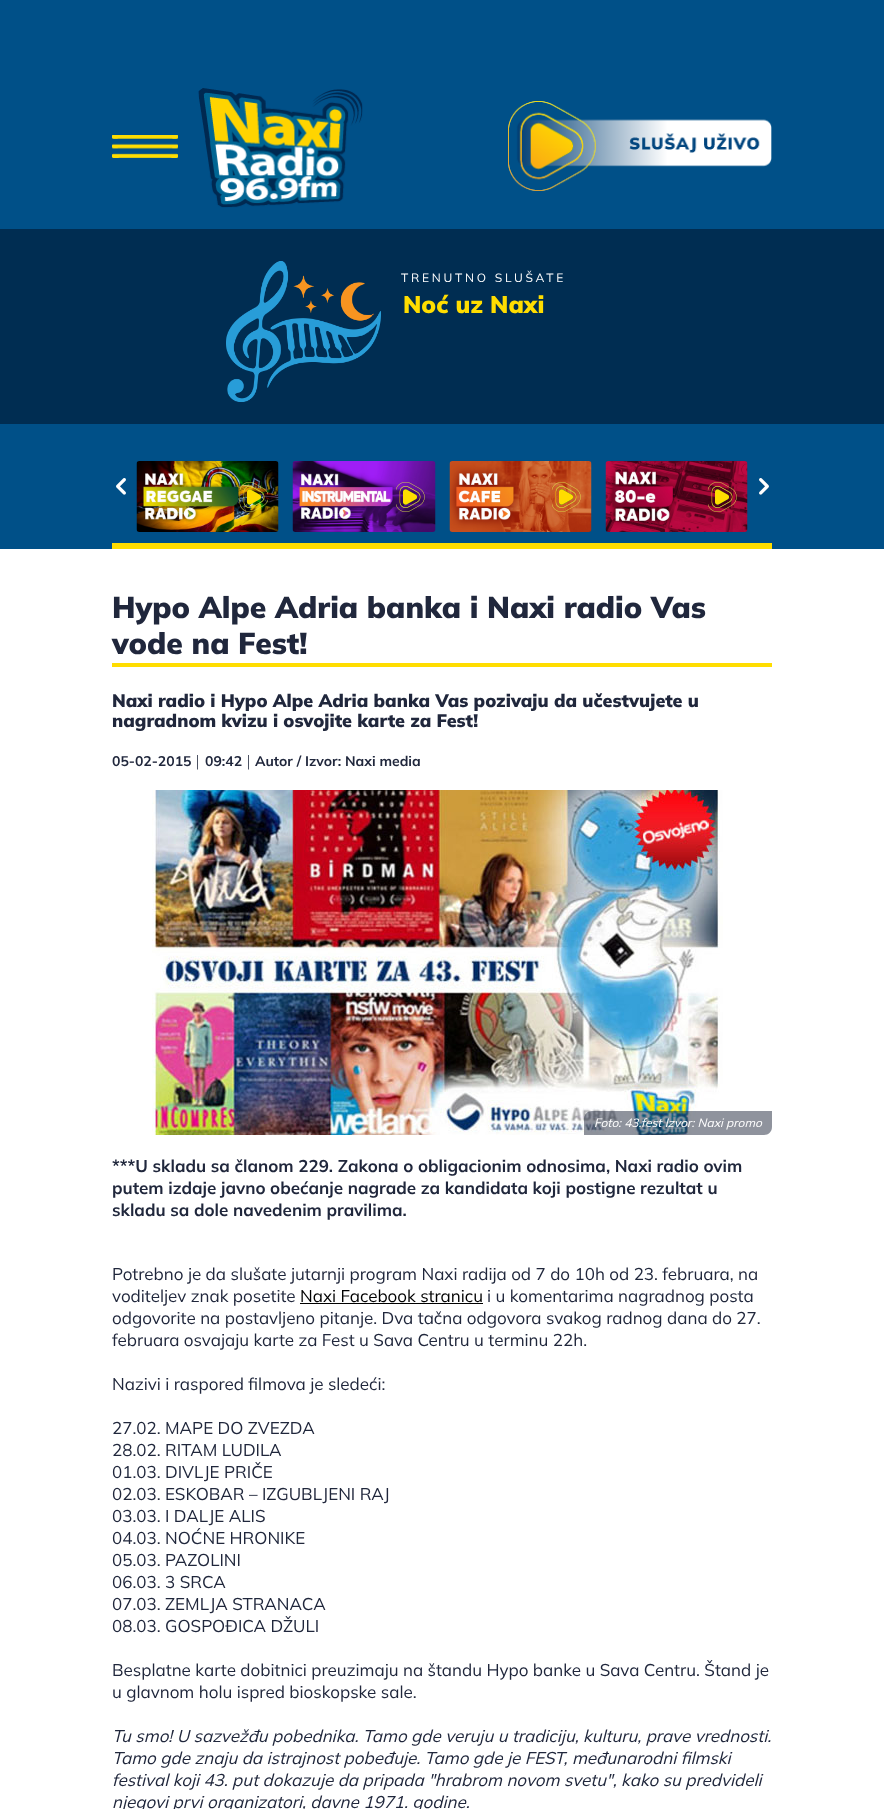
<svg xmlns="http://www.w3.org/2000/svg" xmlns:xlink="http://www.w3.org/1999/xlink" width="884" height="1809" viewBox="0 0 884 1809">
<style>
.cls-1{font:12px Mulish;letter-spacing:2.75px;fill:#ffffff}
.cls-2{font:900 24px Mulish;fill:#ffdd00}
.cls-3{font:900 30px Mulish;fill:#20273c}
.cls-4{font:900 18px Mulish;fill:#20273c}
.cls-5{font:bold 14px Mulish;fill:#20273c}
.cls-6{font:16px Liberation Serif;fill:#20273c}
.cls-7{font:italic 12px Mulish;fill:#ffffff}
.cls-8{font:bold 17px Mulish;fill:#20273c}
.cls-9{font:17px Mulish;fill:#20273c}
.cls-10{font:17px Mulish;fill:#000000}
.cls-11{font:italic 17px Mulish;fill:#20273c}
</style>
<rect width="100%" height="100%" fill="#ffffff"/>
<rect fill="#005088" x="0" y="0" width="884" height="229"/>
<image xlink:href="image0.png" x="112" y="135" width="66" height="23"/>
<image xlink:href="image1.png" x="198" y="88" width="165" height="120"/>
<image xlink:href="image2.png" x="508" y="101" width="264" height="90"/>
<rect fill="#002d52" x="0" y="229" width="884" height="195"/>
<image xlink:href="image3.png" x="226" y="261" width="155" height="141"/>
<rect fill="#005088" x="0" y="424" width="884" height="125"/>
<rect fill="#ffdd00" x="112" y="543" width="660" height="6"/>
<image xlink:href="image4.png" x="136" y="461" width="143" height="71"/>
<image xlink:href="image5.png" x="239" y="482" width="29" height="30"/>
<image xlink:href="image6.png" x="292" y="461" width="144" height="71"/>
<image xlink:href="image7.png" x="396" y="482" width="29" height="30"/>
<image xlink:href="image8.png" x="449" y="461" width="143" height="71"/>
<image xlink:href="image9.png" x="552" y="482" width="29" height="30"/>
<image xlink:href="image10.png" x="605" y="461" width="143" height="71"/>
<image xlink:href="image11.png" x="708" y="482" width="29" height="30"/>
<image xlink:href="image12.png" x="116" y="478" width="10" height="17"/>
<image xlink:href="image13.png" x="759" y="478" width="10" height="17"/>
<rect fill="#ffdd00" x="112" y="663" width="660" height="4"/>
<image xlink:href="image14.png" x="152" y="790" width="571" height="345"/>
<path fill="#20273c" fill-opacity="0.5" d="M592 1111H772V1127C772 1131.5 768.5 1135 764 1135H584V1119C584 1114.5 587.5 1111 592 1111Z"/>
<rect fill="#000000" x="300" y="1303" width="183" height="1"/>
<text class="cls-1" x="401" y="282">TRENUTNO SLUŠATE</text>
<text class="cls-2" x="403" y="313">Noć uz Naxi</text>
<text class="cls-3"><tspan x="112" y="618">Hypo Alpe Adria banka i Naxi radio Vas</tspan><tspan x="112" y="654">vode na Fest!</tspan></text>
<text class="cls-4"><tspan x="112" y="707">Naxi radio i Hypo Alpe Adria banka Vas pozivaju da učestvujete u</tspan><tspan x="112" y="727">nagradnom kvizu i osvojite karte za Fest!</tspan></text>
<text class="cls-5" x="112" y="766">05-02-2015</text>
<text class="cls-6" x="196" y="766">|</text>
<text class="cls-5" x="205" y="766">09:42</text>
<text class="cls-6" x="247" y="766">|</text>
<text class="cls-5" x="255" y="766">Autor / Izvor: Naxi media</text>
<text class="cls-7" x="594" y="1127">Foto: 43.fest Izvor: Naxi promo</text>
<text class="cls-8"><tspan x="112" y="1172">***U skladu sa članom 229. Zakona o obligacionim odnosima, Naxi radio ovim</tspan><tspan x="112" y="1194">putem izdaje javno obećanje nagrade za kandidata koji postigne rezultat u</tspan><tspan x="112" y="1216">skladu sa dole navedenim pravilima.</tspan></text>
<text class="cls-9"><tspan x="112" y="1280">Potrebno je da slušate jutarnji program Naxi radija od 7 do 10h od 23. februara, na</tspan><tspan x="112" y="1302">voditeljev znak posetite</tspan></text>
<text class="cls-10" x="300" y="1302">Naxi Facebook stranicu</text>
<text class="cls-9" x="487" y="1302">i u komentarima nagradnog posta</text>
<text class="cls-9"><tspan x="112" y="1324">odgovorite na postavljeno pitanje. Dva tačna odgovora svakog radnog dana do 27.</tspan><tspan x="112" y="1346">februara osvajaju karte za Fest u Sava Centru u terminu 22h.</tspan></text>
<text class="cls-9" x="112" y="1390">Nazivi i raspored filmova je sledeći:</text>
<text class="cls-9"><tspan x="112" y="1434">27.02. MAPE DO ZVEZDA</tspan><tspan x="112" y="1456">28.02. RITAM LUDILA</tspan><tspan x="112" y="1478">01.03. DIVLJE PRIČE</tspan><tspan x="112" y="1500">02.03. ESKOBAR – IZGUBLJENI RAJ</tspan><tspan x="112" y="1522">03.03. I DALJE ALIS</tspan><tspan x="112" y="1544">04.03. NOĆNE HRONIKE</tspan><tspan x="112" y="1566">05.03. PAZOLINI</tspan><tspan x="112" y="1588">06.03. 3 SRCA</tspan><tspan x="112" y="1610">07.03. ZEMLJA STRANACA</tspan><tspan x="112" y="1632">08.03. GOSPOĐICA DŽULI</tspan></text>
<text class="cls-9"><tspan x="112" y="1676">Besplatne karte dobitnici preuzimaju na štandu Hypo banke u Sava Centru. Štand je</tspan><tspan x="112" y="1698">u glavnom holu ispred bioskopske sale.</tspan></text>
<text class="cls-11"><tspan x="112" y="1742">Tu smo! U sazvežđu pobednika. Tamo gde veruju u tradiciju, kulturu, prave vrednosti.</tspan><tspan x="112" y="1764">Tamo gde znaju da istrajnost pobeđuje. Tamo gde je FEST, međunarodni filmski</tspan><tspan x="112" y="1786">festival koji 43. put dokazuje da pripada "hrabrom novom svetu", kako su predvideli</tspan><tspan x="112" y="1808">njegovi prvi organizatori, davne 1971. godine.</tspan></text>
</svg>
